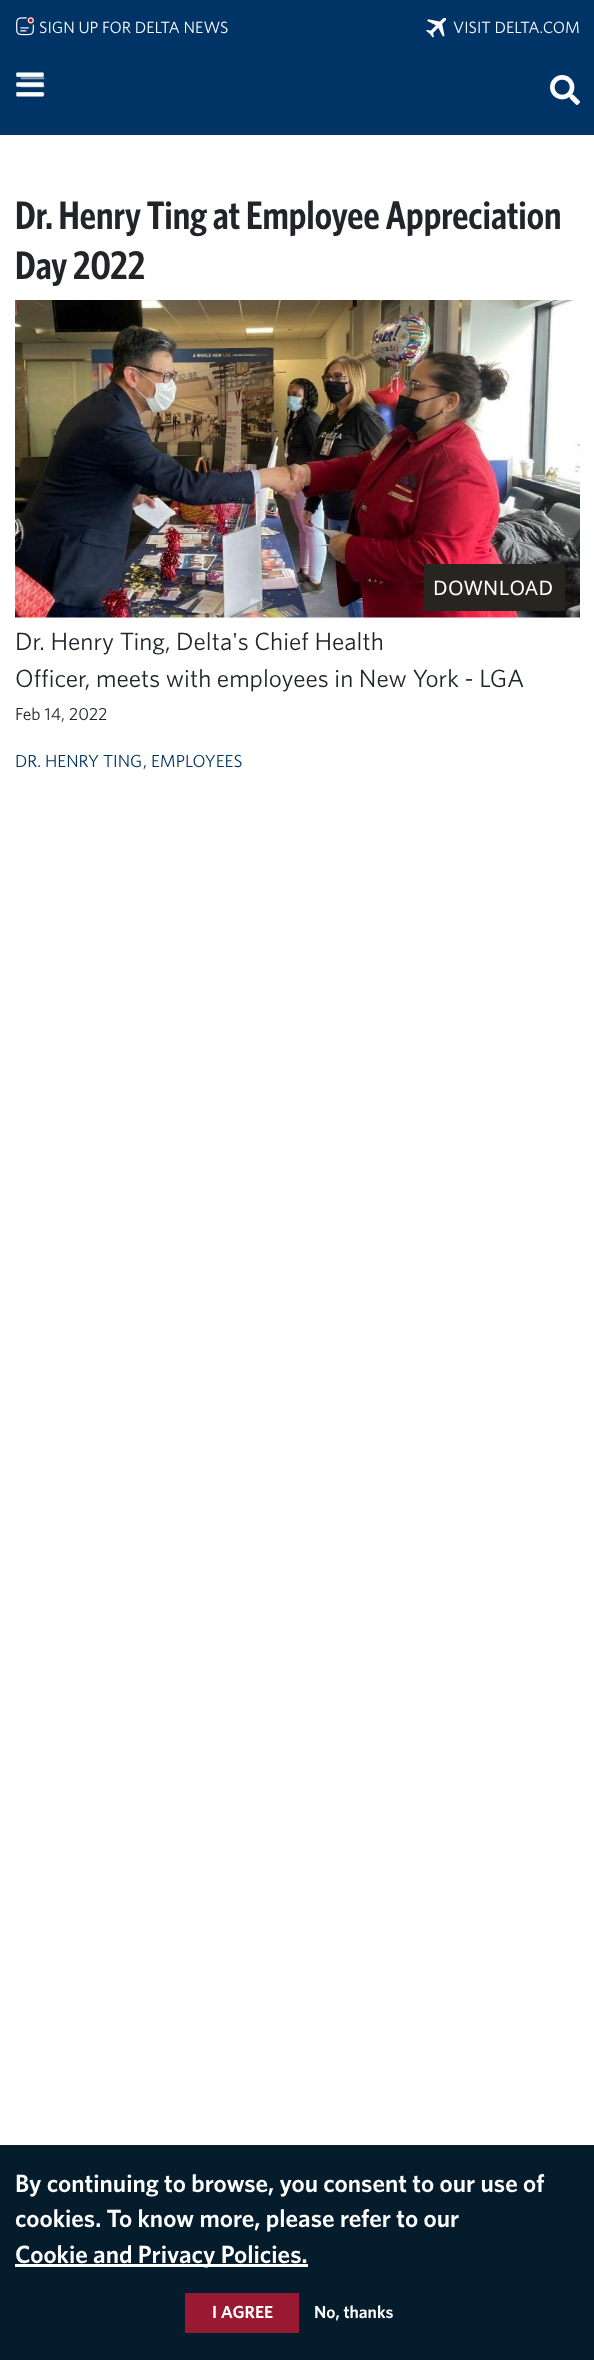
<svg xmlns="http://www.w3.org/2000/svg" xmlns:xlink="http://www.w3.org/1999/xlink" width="594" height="2360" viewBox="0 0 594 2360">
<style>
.cls-1{font:16.4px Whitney;fill:#ffffff}
.cls-2{font:600 40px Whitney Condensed;fill:#212529}
.cls-3{font:20px Noto Sans;letter-spacing:0.5px;fill:#ffffff}
.cls-4{font:25px Whitney;fill:#212529}
.cls-5{font:17.5px Whitney;fill:#212529}
.cls-6{font:17.5px Whitney;fill:#003366}
.cls-7{font:600 25px Whitney;fill:#ffffff}
.cls-8{font:600 17.5px Whitney;fill:#ffffff}
</style>
<rect width="100%" height="100%" fill="#ffffff"/>
<rect fill="#003366" x="0" y="0" width="594" height="135"/>
<image xlink:href="image0.png" x="16" y="17" width="18" height="19"/>
<image xlink:href="image1.png" x="426" y="18" width="20" height="20"/>
<image xlink:href="image2.png" x="16" y="72" width="28" height="25"/>
<image xlink:href="image3.png" x="20" y="77" width="25" height="19"/>
<image xlink:href="image4.png" x="550" y="75" width="30" height="30"/>
<image xlink:href="image5.png" x="15" y="300" width="565" height="318"/>
<rect fill="#27251f" x="424" y="564" width="141" height="47"/>
<rect fill="#041c2c" x="0" y="2145" width="594" height="215"/>
<rect fill="#ffffff" x="15" y="2264" width="293" height="3"/>
<rect fill="#991933" x="185" y="2293" width="114" height="40"/>
<text class="cls-1" x="39" y="33">SIGN UP FOR DELTA NEWS</text>
<text class="cls-1" x="453" y="33">VISIT DELTA.COM</text>
<text class="cls-2"><tspan x="15" y="229">Dr. Henry Ting at Employee Appreciation</tspan><tspan x="15" y="279">Day 2022</tspan></text>
<text class="cls-3" x="433" y="595">DOWNLOAD</text>
<text class="cls-4"><tspan x="15" y="650">Dr. Henry Ting, Delta's Chief Health</tspan><tspan x="15" y="687">Officer, meets with employees in New York - LGA</tspan></text>
<text class="cls-5" x="15" y="720">Feb 14, 2022</text>
<text class="cls-6" x="15" y="767">DR. HENRY TING</text>
<text class="cls-5" x="143" y="767">,</text>
<text class="cls-6" x="151" y="767">EMPLOYEES</text>
<text class="cls-7"><tspan x="15" y="2192">By continuing to browse, you consent to our use of</tspan><tspan x="15" y="2227">cookies. To know more, please refer to our</tspan><tspan x="15" y="2263">Cookie and Privacy Policies.</tspan></text>
<text class="cls-8" x="212" y="2318">I AGREE</text>
<text class="cls-8" x="314" y="2318">No, thanks</text>
</svg>
